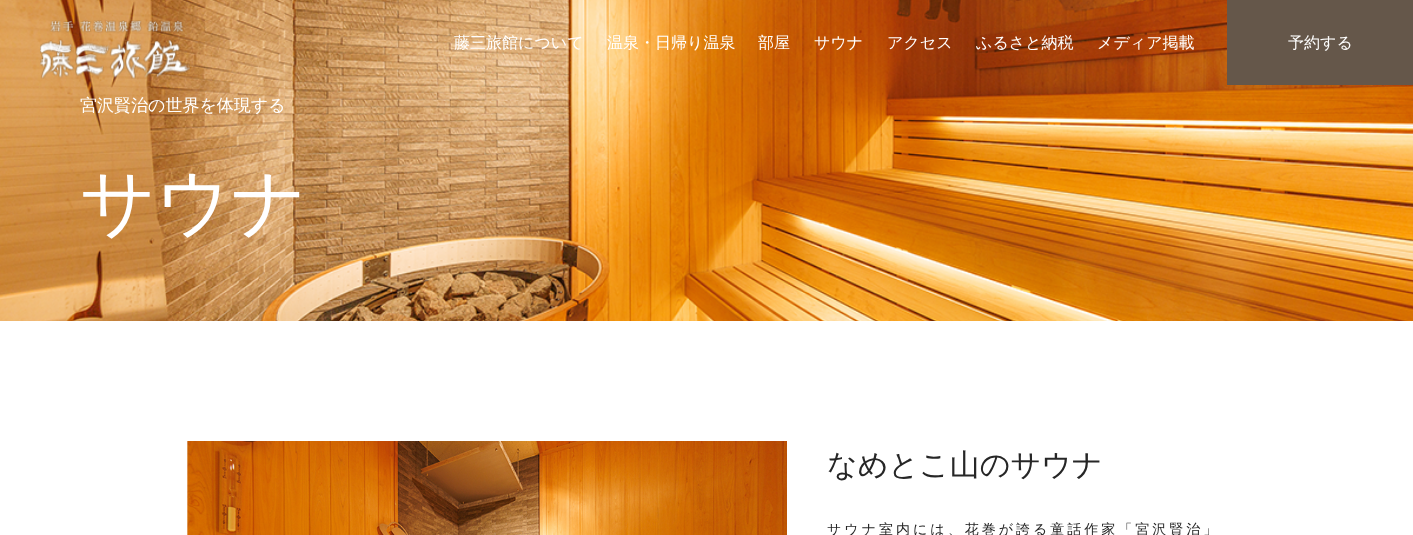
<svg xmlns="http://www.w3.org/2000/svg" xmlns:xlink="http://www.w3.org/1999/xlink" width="1413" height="535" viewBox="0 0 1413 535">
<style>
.cls-1{font:500 16px WenQuanYi Zen Hei;fill:#ffffff}
.cls-2{font:500 17px WenQuanYi Zen Hei;fill:#ffffff}
.cls-3{font:500 74px WenQuanYi Zen Hei;fill:#ffffff}
.cls-4{font:500 30px WenQuanYi Zen Hei;fill:#262626}
.cls-5{font:500 14px WenQuanYi Zen Hei;letter-spacing:3px;fill:#262626}
</style>
<rect width="100%" height="100%" fill="#ffffff"/>
<image xlink:href="image1.png" x="0" y="0" width="1413" height="321"/>
<image xlink:href="image0.png" x="40" y="20" width="150" height="59"/>
<rect fill="#65574a" x="1227" y="0" width="186" height="85"/>
<image xlink:href="image2.png" x="187" y="441" width="600" height="94"/>
<text class="cls-1" x="454" y="48">藤三旅館について</text>
<text class="cls-1" x="607" y="48">温泉・日帰り温泉</text>
<text class="cls-1" x="758" y="48">部屋</text>
<text class="cls-1" x="814" y="48">サウナ</text>
<text class="cls-1" x="887" y="48">アクセス</text>
<text class="cls-1" x="976" y="48">ふるさと納税</text>
<text class="cls-1" x="1097" y="48">メディア掲載</text>
<text class="cls-1" x="1288" y="48">予約する</text>
<text class="cls-2" x="80" y="111">宮沢賢治の世界を体現する</text>
<text class="cls-3" x="80" y="228">サウナ</text>
<text class="cls-4" x="827" y="475">なめとこ山のサウナ</text>
<text class="cls-5" x="827" y="534">サウナ室内には、花巻が誇る童話作家「宮沢賢治」</text>
</svg>
